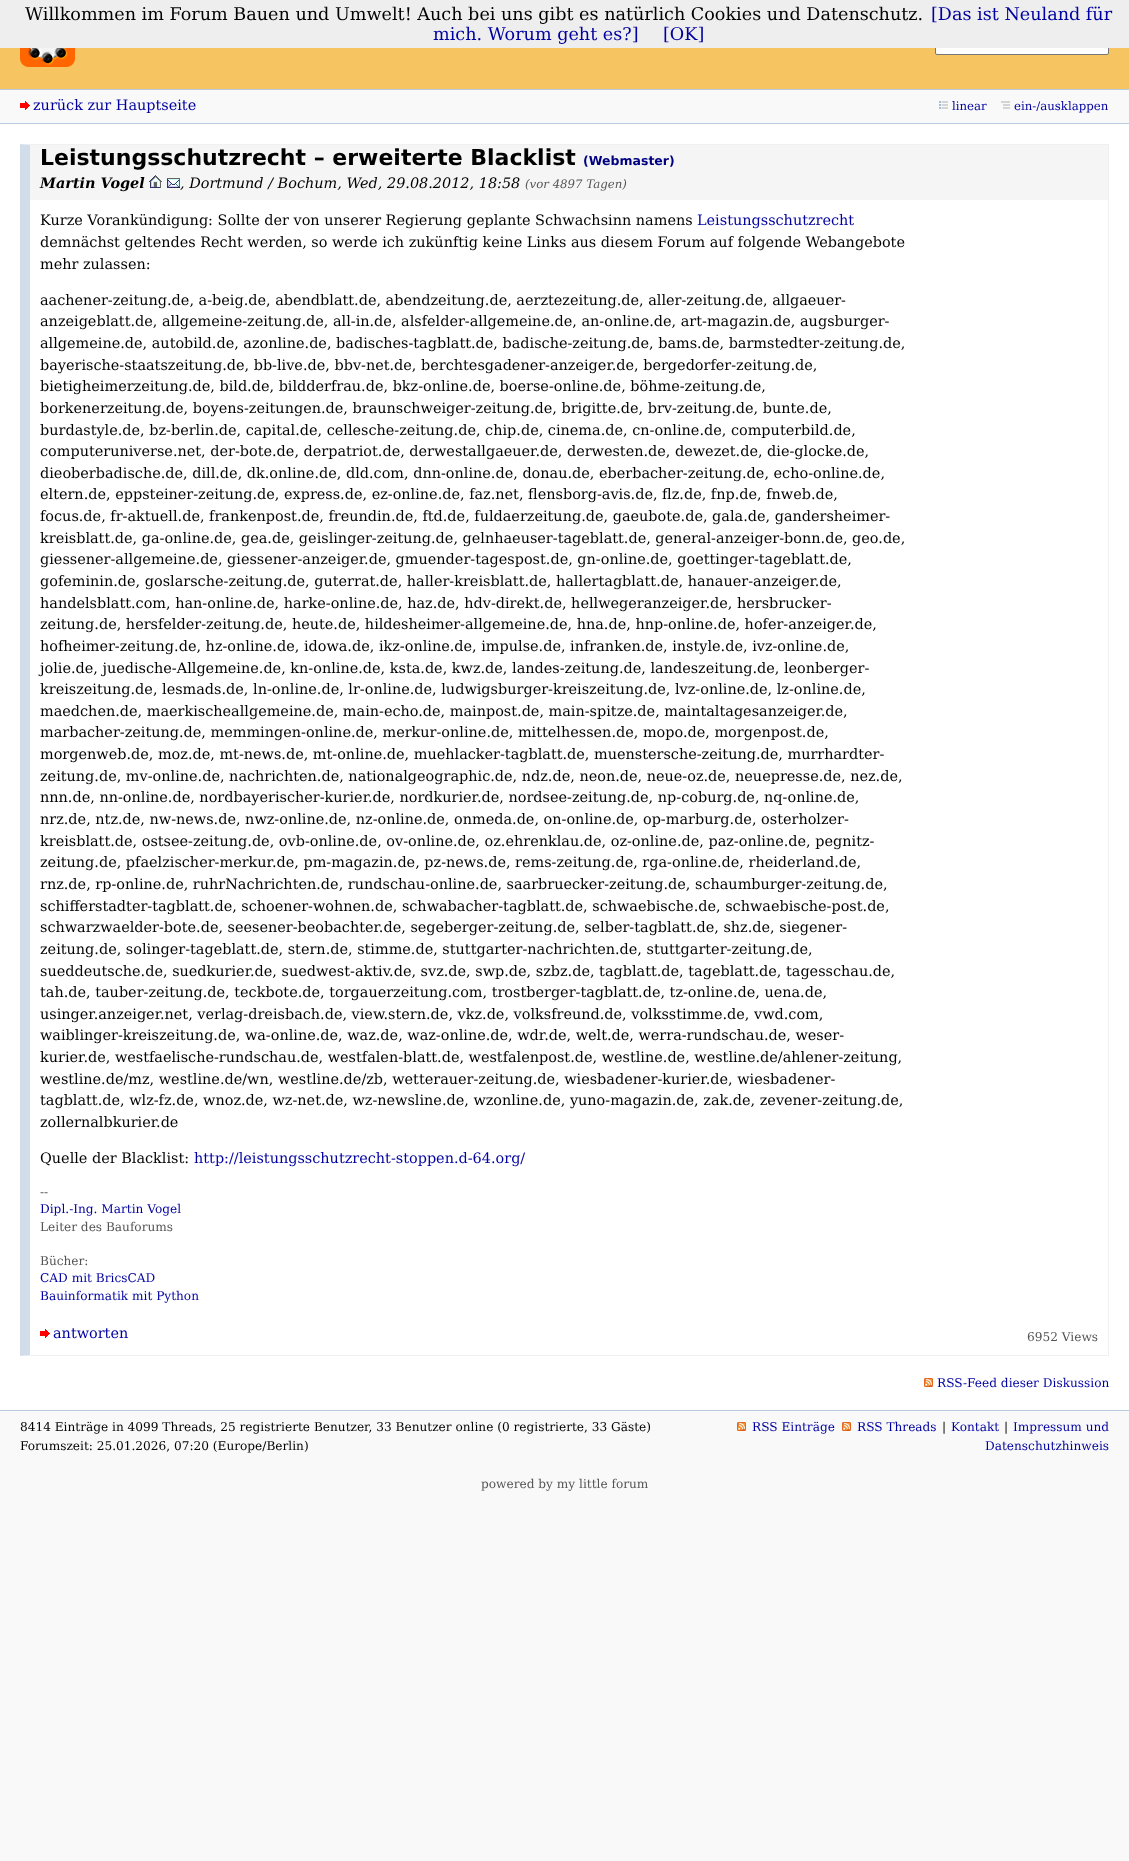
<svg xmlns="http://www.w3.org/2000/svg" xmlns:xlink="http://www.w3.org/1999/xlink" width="1129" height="1861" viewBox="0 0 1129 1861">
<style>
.cls-1{font:17.6px DejaVu Serif;fill:#000000}
.cls-2{font:17.6px DejaVu Serif;fill:#0000a0}
.cls-3{font:14.43px DejaVu Serif;fill:#0000a0}
.cls-4{font:11.75px DejaVu Serif;fill:#0000a0}
.cls-5{font:bold 22px DejaVu Sans;fill:#000000}
.cls-6{font:bold 12.5px DejaVu Sans;fill:#000080}
.cls-7{font:italic bold 14.43px DejaVu Serif;fill:#000000}
.cls-8{font:italic 14.43px DejaVu Serif;fill:#000000}
.cls-9{font:italic 11.75px DejaVu Serif;fill:#545454}
.cls-10{font:14.43px DejaVu Serif;fill:#000000}
.cls-11{font:12.15px DejaVu Serif;fill:#545454}
.cls-12{font:12.15px DejaVu Serif;fill:#0000a0}
.cls-13{font:12.15px DejaVu Serif;fill:#000000}
</style>
<rect width="100%" height="100%" fill="#f9f9f9"/>
<rect fill="#f6c461" x="0" y="48" width="1129" height="41"/>
<rect fill="#ffffff" stroke="#767676" x="935.5" y="35.5" width="173" height="19" rx="1.5"/>
<rect fill="#eeeeee" x="0" y="0" width="1129" height="48"/>
<image xlink:href="image0.png" x="20" y="48" width="55" height="19"/>
<rect fill="#bacbdf" x="0" y="89" width="1129" height="1"/>
<rect fill="#bacbdf" x="0" y="123" width="1129" height="1"/>
<image xlink:href="image1.png" x="20" y="101" width="10" height="9"/>
<image xlink:href="image2.png" x="939" y="101" width="9" height="8"/>
<image xlink:href="image3.png" x="1001" y="101" width="9" height="8"/>
<rect fill="#ffffff" x="0" y="124" width="1129" height="1286"/>
<path fill="#f0f0f0" d="M20 144H1109L1108 145H30Z"/>
<rect fill="#f0f0f0" x="1108" y="144" width="1" height="1212"/>
<path fill="#f0f0f0" d="M1109 1356H20L30 1355H1108Z"/>
<path fill="#d2ddea" d="M20 1356V144L30 145V1355Z"/>
<rect fill="#f5f5f5" x="30" y="145" width="1078" height="55"/>
<image xlink:href="image4.png" x="149" y="175" width="13" height="13"/>
<image xlink:href="image5.png" x="167" y="178" width="13" height="10"/>
<image xlink:href="image6.png" x="40" y="1329" width="10" height="9"/>
<image xlink:href="image7.png" x="924" y="1378" width="9" height="9"/>
<rect fill="#bacbdf" x="0" y="1410" width="1129" height="1"/>
<image xlink:href="image7.png" x="737" y="1422" width="9" height="9"/>
<image xlink:href="image7.png" x="842" y="1422" width="9" height="9"/>
<text class="cls-1" x="25" y="20">Willkommen im Forum Bauen und Umwelt! Auch bei uns gibt es natürlich Cookies und Datenschutz.</text>
<text class="cls-2" x="931" y="20">[Das ist Neuland für</text>
<text class="cls-2" x="433" y="40">mich. Worum geht es?]</text>
<text class="cls-2" x="663" y="40">[OK]</text>
<text class="cls-3" x="33" y="110">zurück zur Hauptseite</text>
<text class="cls-4" x="952" y="110">linear</text>
<text class="cls-4" x="1014" y="110">ein-/ausklappen</text>
<text class="cls-5" x="40" y="165">Leistungsschutzrecht – erweiterte Blacklist</text>
<text class="cls-6" x="583" y="165">(Webmaster)</text>
<text class="cls-7" x="40" y="188">Martin Vogel</text>
<text class="cls-8" x="180" y="188">, Dortmund / Bochum, Wed, 29.08.2012, 18:58</text>
<text class="cls-9" x="525" y="188">(vor 4897 Tagen)</text>
<text class="cls-10" x="40" y="225">Kurze Vorankündigung: Sollte der von unserer Regierung geplante Schwachsinn namens</text>
<text class="cls-3" x="697" y="225">Leistungsschutzrecht</text>
<text class="cls-10"><tspan x="40" y="247">demnächst geltendes Recht werden, so werde ich zukünftig keine Links aus diesem Forum auf folgende Webangebote</tspan><tspan x="40" y="269">mehr zulassen:</tspan></text>
<text class="cls-10"><tspan x="40" y="305">aachener-zeitung.de, a-beig.de, abendblatt.de, abendzeitung.de, aerztezeitung.de, aller-zeitung.de, allgaeuer-</tspan><tspan x="40" y="326">anzeigeblatt.de, allgemeine-zeitung.de, all-in.de, alsfelder-allgemeine.de, an-online.de, art-magazin.de, augsburger-</tspan><tspan x="40" y="348">allgemeine.de, autobild.de, azonline.de, badisches-tagblatt.de, badische-zeitung.de, bams.de, barmstedter-zeitung.de,</tspan><tspan x="40" y="370">bayerische-staatszeitung.de, bb-live.de, bbv-net.de, berchtesgadener-anzeiger.de, bergedorfer-zeitung.de,</tspan><tspan x="40" y="391">bietigheimerzeitung.de, bild.de, bildderfrau.de, bkz-online.de, boerse-online.de, böhme-zeitung.de,</tspan><tspan x="40" y="413">borkenerzeitung.de, boyens-zeitungen.de, braunschweiger-zeitung.de, brigitte.de, brv-zeitung.de, bunte.de,</tspan><tspan x="40" y="435">burdastyle.de, bz-berlin.de, capital.de, cellesche-zeitung.de, chip.de, cinema.de, cn-online.de, computerbild.de,</tspan><tspan x="40" y="456">computeruniverse.net, der-bote.de, derpatriot.de, derwestallgaeuer.de, derwesten.de, dewezet.de, die-glocke.de,</tspan><tspan x="40" y="478">dieoberbadische.de, dill.de, dk.online.de, dld.com, dnn-online.de, donau.de, eberbacher-zeitung.de, echo-online.de,</tspan><tspan x="40" y="499">eltern.de, eppsteiner-zeitung.de, express.de, ez-online.de, faz.net, flensborg-avis.de, flz.de, fnp.de, fnweb.de,</tspan><tspan x="40" y="521">focus.de, fr-aktuell.de, frankenpost.de, freundin.de, ftd.de, fuldaerzeitung.de, gaeubote.de, gala.de, gandersheimer-</tspan><tspan x="40" y="543">kreisblatt.de, ga-online.de, gea.de, geislinger-zeitung.de, gelnhaeuser-tageblatt.de, general-anzeiger-bonn.de, geo.de,</tspan><tspan x="40" y="564">giessener-allgemeine.de, giessener-anzeiger.de, gmuender-tagespost.de, gn-online.de, goettinger-tageblatt.de,</tspan><tspan x="40" y="586">gofeminin.de, goslarsche-zeitung.de, guterrat.de, haller-kreisblatt.de, hallertagblatt.de, hanauer-anzeiger.de,</tspan><tspan x="40" y="608">handelsblatt.com, han-online.de, harke-online.de, haz.de, hdv-direkt.de, hellwegeranzeiger.de, hersbrucker-</tspan><tspan x="40" y="629">zeitung.de, hersfelder-zeitung.de, heute.de, hildesheimer-allgemeine.de, hna.de, hnp-online.de, hofer-anzeiger.de,</tspan><tspan x="40" y="651">hofheimer-zeitung.de, hz-online.de, idowa.de, ikz-online.de, impulse.de, infranken.de, instyle.de, ivz-online.de,</tspan><tspan x="40" y="673">jolie.de, juedische-Allgemeine.de, kn-online.de, ksta.de, kwz.de, landes-zeitung.de, landeszeitung.de, leonberger-</tspan><tspan x="40" y="694">kreiszeitung.de, lesmads.de, ln-online.de, lr-online.de, ludwigsburger-kreiszeitung.de, lvz-online.de, lz-online.de,</tspan><tspan x="40" y="716">maedchen.de, maerkischeallgemeine.de, main-echo.de, mainpost.de, main-spitze.de, maintaltagesanzeiger.de,</tspan><tspan x="40" y="737">marbacher-zeitung.de, memmingen-online.de, merkur-online.de, mittelhessen.de, mopo.de, morgenpost.de,</tspan><tspan x="40" y="759">morgenweb.de, moz.de, mt-news.de, mt-online.de, muehlacker-tagblatt.de, muenstersche-zeitung.de, murrhardter-</tspan><tspan x="40" y="781">zeitung.de, mv-online.de, nachrichten.de, nationalgeographic.de, ndz.de, neon.de, neue-oz.de, neuepresse.de, nez.de,</tspan><tspan x="40" y="802">nnn.de, nn-online.de, nordbayerischer-kurier.de, nordkurier.de, nordsee-zeitung.de, np-coburg.de, nq-online.de,</tspan><tspan x="40" y="824">nrz.de, ntz.de, nw-news.de, nwz-online.de, nz-online.de, onmeda.de, on-online.de, op-marburg.de, osterholzer-</tspan><tspan x="40" y="846">kreisblatt.de, ostsee-zeitung.de, ovb-online.de, ov-online.de, oz.ehrenklau.de, oz-online.de, paz-online.de, pegnitz-</tspan><tspan x="40" y="867">zeitung.de, pfaelzischer-merkur.de, pm-magazin.de, pz-news.de, rems-zeitung.de, rga-online.de, rheiderland.de,</tspan><tspan x="40" y="889">rnz.de, rp-online.de, ruhrNachrichten.de, rundschau-online.de, saarbruecker-zeitung.de, schaumburger-zeitung.de,</tspan><tspan x="40" y="911">schifferstadter-tagblatt.de, schoener-wohnen.de, schwabacher-tagblatt.de, schwaebische.de, schwaebische-post.de,</tspan><tspan x="40" y="932">schwarzwaelder-bote.de, seesener-beobachter.de, segeberger-zeitung.de, selber-tagblatt.de, shz.de, siegener-</tspan><tspan x="40" y="954">zeitung.de, solinger-tageblatt.de, stern.de, stimme.de, stuttgarter-nachrichten.de, stuttgarter-zeitung.de,</tspan><tspan x="40" y="976">sueddeutsche.de, suedkurier.de, suedwest-aktiv.de, svz.de, swp.de, szbz.de, tagblatt.de, tageblatt.de, tagesschau.de,</tspan><tspan x="40" y="997">tah.de, tauber-zeitung.de, teckbote.de, torgauerzeitung.com, trostberger-tagblatt.de, tz-online.de, uena.de,</tspan><tspan x="40" y="1019">usinger.anzeiger.net, verlag-dreisbach.de, view.stern.de, vkz.de, volksfreund.de, volksstimme.de, vwd.com,</tspan><tspan x="40" y="1040">waiblinger-kreiszeitung.de, wa-online.de, waz.de, waz-online.de, wdr.de, welt.de, werra-rundschau.de, weser-</tspan><tspan x="40" y="1062">kurier.de, westfaelische-rundschau.de, westfalen-blatt.de, westfalenpost.de, westline.de, westline.de/ahlener-zeitung,</tspan><tspan x="40" y="1084">westline.de/mz, westline.de/wn, westline.de/zb, wetterauer-zeitung.de, wiesbadener-kurier.de, wiesbadener-</tspan><tspan x="40" y="1105">tagblatt.de, wlz-fz.de, wnoz.de, wz-net.de, wz-newsline.de, wzonline.de, yuno-magazin.de, zak.de, zevener-zeitung.de,</tspan><tspan x="40" y="1127">zollernalbkurier.de</tspan></text>
<text class="cls-10" x="40" y="1163">Quelle der Blacklist:</text>
<text class="cls-3" x="194" y="1163">http://leistungsschutzrecht-stoppen.d-64.org/</text>
<text class="cls-11" x="40" y="1196">--</text>
<text class="cls-12" x="40" y="1213">Dipl.-Ing. Martin Vogel</text>
<text class="cls-11" x="40" y="1231">Leiter des Bauforums</text>
<text class="cls-11" x="40" y="1265">Bücher:</text>
<text class="cls-12"><tspan x="40" y="1282">CAD mit BricsCAD</tspan><tspan x="40" y="1300">Bauinformatik mit Python</tspan></text>
<text class="cls-3" x="53" y="1338">antworten</text>
<text class="cls-11" x="1027" y="1341">6952 Views</text>
<text class="cls-12" x="937" y="1387">RSS-Feed dieser Diskussion</text>
<text class="cls-13"><tspan x="20" y="1431">8414 Einträge in 4099 Threads, 25 registrierte Benutzer, 33 Benutzer online (0 registrierte, 33 Gäste)</tspan><tspan x="20" y="1450">Forumszeit: 25.01.2026, 07:20 (Europe/Berlin)</tspan></text>
<text class="cls-12" x="752" y="1431">RSS Einträge</text>
<text class="cls-12" x="857" y="1431">RSS Threads</text>
<text class="cls-13" x="942" y="1431">|</text>
<text class="cls-12" x="951" y="1431">Kontakt</text>
<text class="cls-13" x="1004" y="1431">|</text>
<text class="cls-12" x="1013" y="1431">Impressum und</text>
<text class="cls-12" x="985" y="1450">Datenschutzhinweis</text>
<text class="cls-11" x="481" y="1488">powered by my little forum</text>
</svg>
